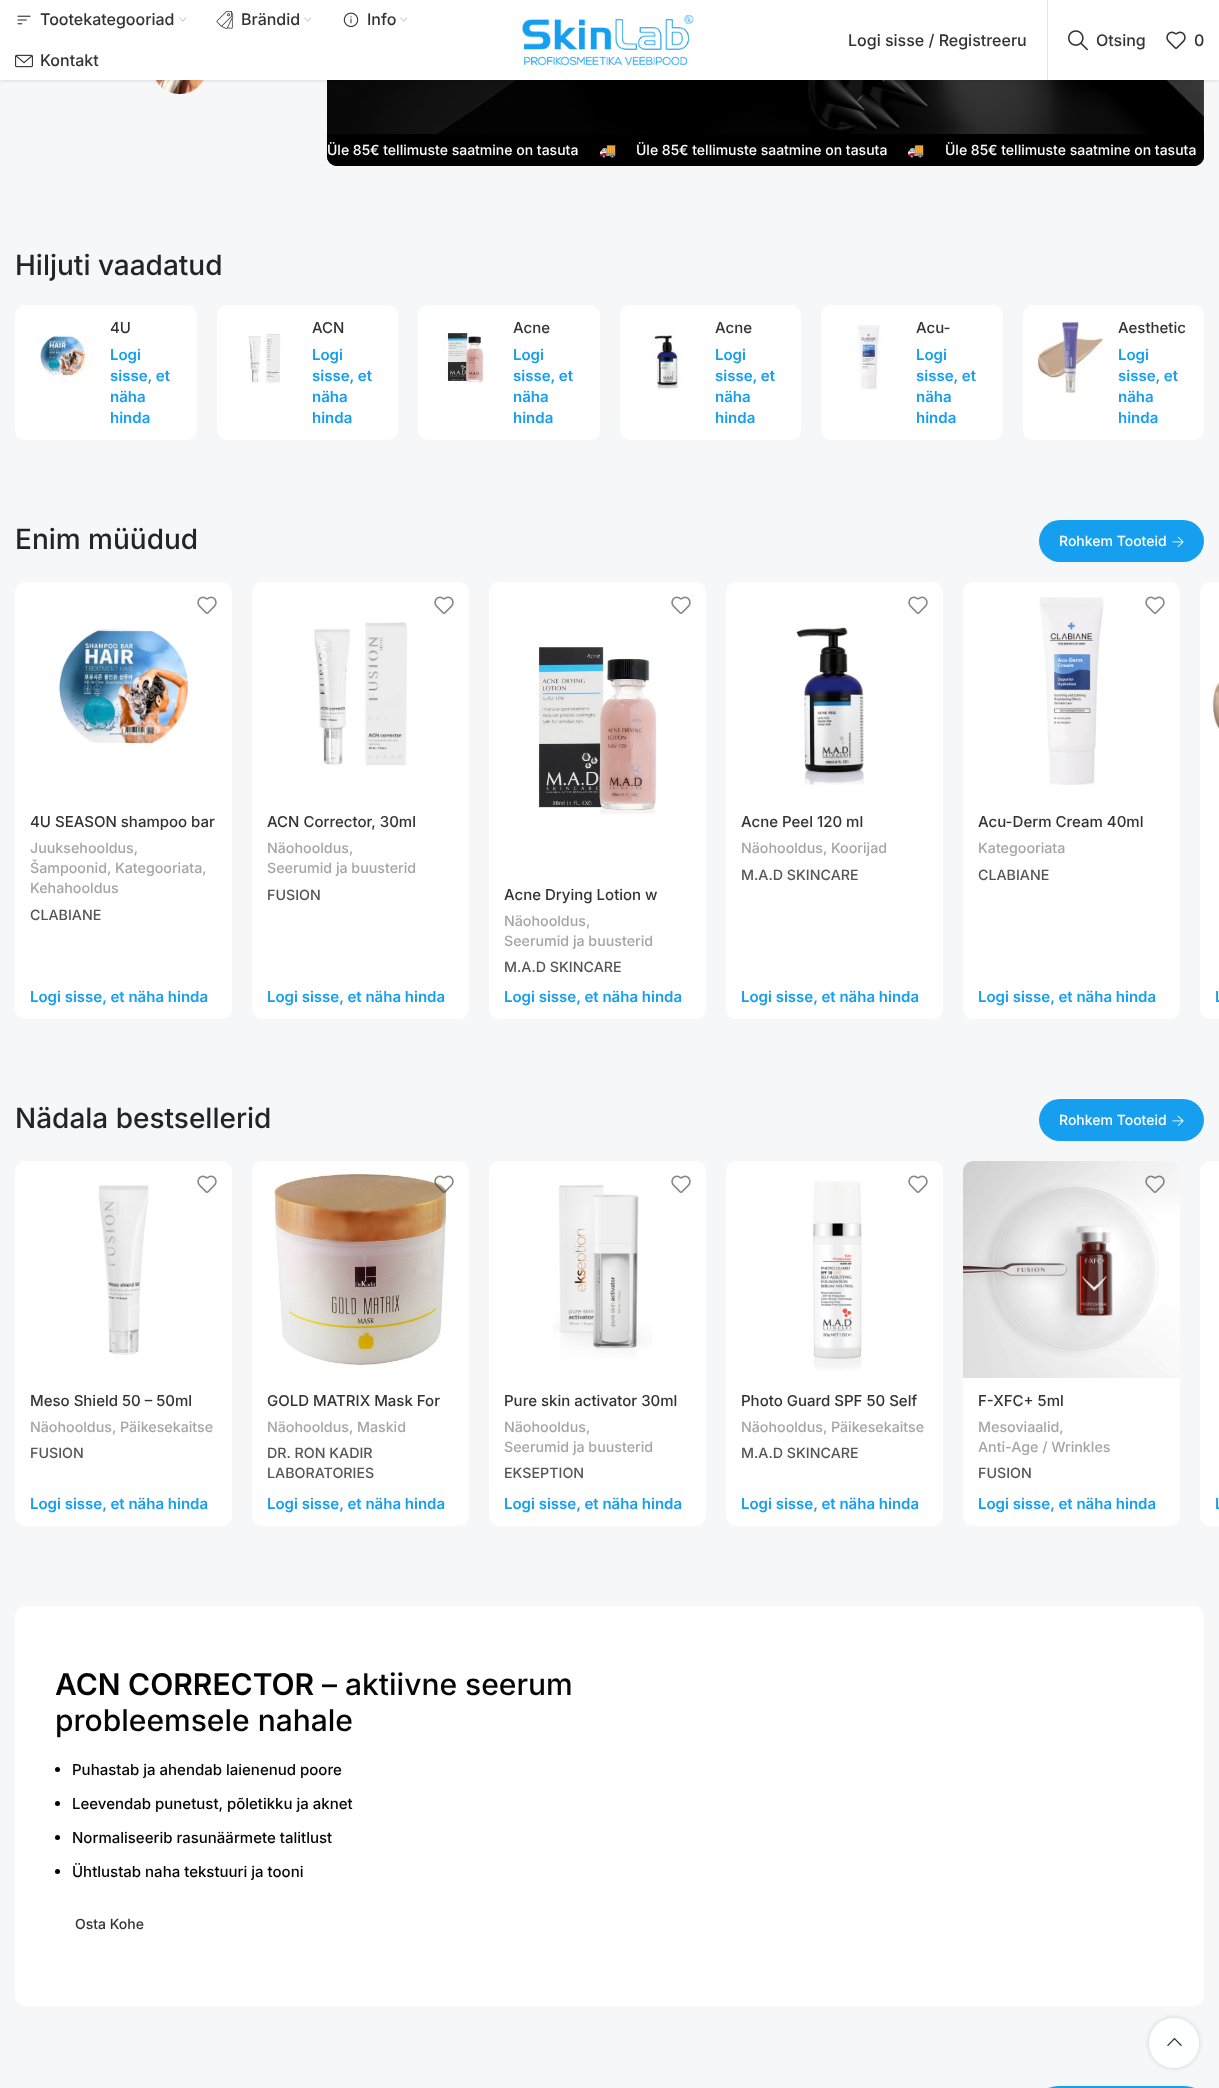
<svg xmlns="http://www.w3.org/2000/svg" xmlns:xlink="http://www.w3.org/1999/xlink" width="1219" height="2088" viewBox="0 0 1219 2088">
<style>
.cls-1{font:500 16px Inter;fill:#333333}
.cls-2{font:500 14px Inter;fill:#ffffff}
.cls-3{font:14px Noto Color Emoji;fill:#ffffff}
.cls-4{font:500 28px Inter;fill:#242424}
.cls-5{font:500 15px Inter;fill:#333333}
.cls-6{font:600 15px Inter;fill:#169eef}
.cls-7{font:500 14.25px Inter;fill:#a5a5a5}
.cls-8{font:500 14.25px Inter;fill:#555555}
.cls-9{font:600 30px Inter;fill:#050505}
.cls-10{font:500 30px Inter;fill:#050505}
.cls-11{font:500 15px Inter;fill:#050505}
.cls-12{font:500 14px Inter;fill:#333333}
</style>
<defs>
<clipPath id="clip1"><path d="M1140 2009H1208V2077H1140ZM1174 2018C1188 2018 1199 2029 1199 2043C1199 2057 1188 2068 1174 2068C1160 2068 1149 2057 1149 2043C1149 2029 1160 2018 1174 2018Z" clip-rule="evenodd"/></clipPath>
</defs>
<rect width="100%" height="100%" fill="#f5f7f8"/>
<image xlink:href="image8.png" x="154" y="80" width="51" height="14"/>
<image xlink:href="image9.png" x="327" y="80" width="877" height="86"/>
<rect fill="#000000" fill-opacity="0.1" filter="blur(1.5px)" x="0" y="1" width="1219" height="80"/>
<rect fill="#ffffff" x="0" y="0" width="1219" height="80"/>
<image xlink:href="image0.png" x="17" y="15" width="14" height="10"/>
<image xlink:href="image1.png" x="179" y="17" width="8" height="5"/>
<image xlink:href="image2.png" x="216" y="11" width="18" height="18"/>
<image xlink:href="image1.png" x="304" y="17" width="8" height="5"/>
<image xlink:href="image3.png" x="343" y="12" width="16" height="15"/>
<image xlink:href="image1.png" x="400" y="17" width="8" height="5"/>
<image xlink:href="image4.png" x="15" y="54" width="18" height="14"/>
<image xlink:href="image5.png" x="522" y="15" width="172" height="50"/>
<rect fill="#e4e4e4" x="1047" y="0" width="1" height="80"/>
<image xlink:href="image6.png" x="1068" y="30" width="20" height="21"/>
<image xlink:href="image7.png" x="1166" y="31" width="20" height="18"/>
<path fill="#000000" d="M327 134H1204V156C1204 161.5 1199.5 166 1194 166H337C331.5 166 327 161.5 327 156Z"/>
<rect fill="#ffffff" x="15" y="305" width="182" height="135" rx="10"/>
<image xlink:href="image10.png" x="30" y="335" width="64" height="49"/>
<rect fill="#ffffff" x="217" y="305" width="181" height="135" rx="10"/>
<image xlink:href="image11.png" x="248" y="333" width="33" height="51"/>
<rect fill="#ffffff" x="418" y="305" width="182" height="135" rx="10"/>
<image xlink:href="image12.png" x="443" y="332" width="44" height="52"/>
<rect fill="#ffffff" x="620" y="305" width="181" height="135" rx="10"/>
<image xlink:href="image13.png" x="651" y="328" width="32" height="63"/>
<rect fill="#ffffff" x="821" y="305" width="182" height="135" rx="10"/>
<image xlink:href="image14.png" x="852" y="325" width="32" height="65"/>
<rect fill="#ffffff" x="1023" y="305" width="181" height="135" rx="10"/>
<image xlink:href="image15.png" x="1038" y="320" width="65" height="74"/>
<rect fill="#169eef" x="1039" y="520" width="165" height="42" rx="21"/>
<image xlink:href="image16.png" x="1172" y="536" width="12" height="11"/>
<rect fill="#ffffff" x="15" y="582" width="217" height="437" rx="10"/>
<image xlink:href="image17.png" x="197" y="596" width="20" height="18"/>
<image xlink:href="image18.png" x="59" y="628" width="129" height="116"/>
<rect fill="#ffffff" x="252" y="582" width="217" height="437" rx="10"/>
<image xlink:href="image17.png" x="434" y="596" width="20" height="18"/>
<image xlink:href="image19.png" x="314" y="622" width="94" height="144"/>
<rect fill="#ffffff" x="489" y="582" width="217" height="437" rx="10"/>
<image xlink:href="image17.png" x="671" y="596" width="20" height="18"/>
<image xlink:href="image20.png" x="538" y="647" width="120" height="167"/>
<rect fill="#ffffff" x="726" y="582" width="217" height="437" rx="10"/>
<image xlink:href="image17.png" x="908" y="596" width="20" height="18"/>
<image xlink:href="image21.png" x="796" y="627" width="68" height="158"/>
<rect fill="#ffffff" x="963" y="582" width="217" height="437" rx="10"/>
<image xlink:href="image22.png" x="1039" y="597" width="65" height="188"/>
<image xlink:href="image17.png" x="1145" y="596" width="20" height="18"/>
<rect fill="#ffffff" x="1200" y="582" width="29" height="437" rx="10"/>
<image xlink:href="image23.png" x="1212" y="682" width="7" height="47"/>
<rect fill="#169eef" x="1039" y="1099" width="165" height="42" rx="21"/>
<image xlink:href="image16.png" x="1172" y="1115" width="12" height="11"/>
<rect fill="#ffffff" x="15" y="1161" width="217" height="365" rx="10"/>
<image xlink:href="image24.png" x="98" y="1185" width="51" height="170"/>
<image xlink:href="image17.png" x="197" y="1175" width="20" height="18"/>
<rect fill="#ffffff" x="252" y="1161" width="217" height="365" rx="10"/>
<image xlink:href="image25.png" x="274" y="1174" width="174" height="191"/>
<image xlink:href="image26.png" x="434" y="1175" width="20" height="18"/>
<rect fill="#ffffff" x="489" y="1161" width="217" height="365" rx="10"/>
<image xlink:href="image27.png" x="553" y="1184" width="99" height="174"/>
<image xlink:href="image17.png" x="671" y="1175" width="20" height="18"/>
<rect fill="#ffffff" x="726" y="1161" width="217" height="365" rx="10"/>
<image xlink:href="image28.png" x="813" y="1181" width="49" height="190"/>
<image xlink:href="image17.png" x="908" y="1175" width="20" height="18"/>
<rect fill="#ffffff" x="963" y="1161" width="217" height="365" rx="10"/>
<image xlink:href="image29.png" x="963" y="1161" width="217" height="217"/>
<image xlink:href="image30.png" x="1145" y="1175" width="20" height="18"/>
<rect fill="#ffffff" x="1200" y="1161" width="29" height="365" rx="10"/>
<rect fill="#ffffff" x="15" y="1606" width="1189" height="400" rx="10"/>
<circle fill="#000000" cx="57.5" cy="1769.5" r="2.5"/>
<circle fill="#000000" cx="57.5" cy="1803.5" r="2.5"/>
<circle fill="#000000" cx="57.5" cy="1837.5" r="2.5"/>
<circle fill="#000000" cx="57.5" cy="1871.5" r="2.5"/>
<rect fill="#169eef" x="1039" y="2086" width="165" height="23" rx="21"/>
<g clip-path="url(#clip1)">
<rect fill="#000000" fill-opacity="0.17" filter="blur(2.5px)" x="1149" y="2018" width="50" height="50" rx="25"/>
</g>
<circle fill="#ffffff" fill-opacity="0.9" cx="1174" cy="2043" r="25"/>
<image xlink:href="image31.png" x="1167" y="2038" width="15" height="8"/>
<text class="cls-1" x="40" y="25">Tootekategooriad</text>
<text class="cls-1" x="241" y="25">Brändid</text>
<text class="cls-1" x="367" y="25">Info</text>
<text class="cls-1" x="40" y="66">Kontakt</text>
<text class="cls-1" x="848" y="46">Logi sisse / Registreeru</text>
<text class="cls-1" x="1096" y="46">Otsing</text>
<text class="cls-1" x="1194" y="46">0</text>
<text class="cls-2" x="327" y="155">Üle 85€ tellimuste saatmine on tasuta</text>
<text class="cls-3" x="599" y="155">🚚</text>
<text class="cls-2" x="636" y="155">Üle 85€ tellimuste saatmine on tasuta</text>
<text class="cls-3" x="907" y="155">🚚</text>
<text class="cls-2" x="945" y="155">Üle 85€ tellimuste saatmine on tasuta</text>
<text class="cls-4" x="15" y="275">Hiljuti vaadatud</text>
<text class="cls-5" x="110" y="333">4U</text>
<text class="cls-6"><tspan x="110" y="360">Logi</tspan><tspan x="110" y="381">sisse, et</tspan><tspan x="110" y="402">näha</tspan><tspan x="110" y="423">hinda</tspan></text>
<text class="cls-5" x="312" y="333">ACN</text>
<text class="cls-6"><tspan x="312" y="360">Logi</tspan><tspan x="312" y="381">sisse, et</tspan><tspan x="312" y="402">näha</tspan><tspan x="312" y="423">hinda</tspan></text>
<text class="cls-5" x="513" y="333">Acne</text>
<text class="cls-6"><tspan x="513" y="360">Logi</tspan><tspan x="513" y="381">sisse, et</tspan><tspan x="513" y="402">näha</tspan><tspan x="513" y="423">hinda</tspan></text>
<text class="cls-5" x="715" y="333">Acne</text>
<text class="cls-6"><tspan x="715" y="360">Logi</tspan><tspan x="715" y="381">sisse, et</tspan><tspan x="715" y="402">näha</tspan><tspan x="715" y="423">hinda</tspan></text>
<text class="cls-5" x="916" y="333">Acu-</text>
<text class="cls-6"><tspan x="916" y="360">Logi</tspan><tspan x="916" y="381">sisse, et</tspan><tspan x="916" y="402">näha</tspan><tspan x="916" y="423">hinda</tspan></text>
<text class="cls-5" x="1118" y="333">Aesthetic</text>
<text class="cls-6"><tspan x="1118" y="360">Logi</tspan><tspan x="1118" y="381">sisse, et</tspan><tspan x="1118" y="402">näha</tspan><tspan x="1118" y="423">hinda</tspan></text>
<text class="cls-4" x="15" y="549">Enim müüdud</text>
<text class="cls-2" x="1059" y="546">Rohkem Tooteid</text>
<text class="cls-5" x="30" y="827">4U SEASON shampoo bar</text>
<text class="cls-7"><tspan x="30" y="853">Juuksehooldus,</tspan><tspan x="30" y="873">Šampoonid, Kategooriata,</tspan><tspan x="30" y="893">Kehahooldus</tspan></text>
<text class="cls-8" x="30" y="920">CLABIANE</text>
<text class="cls-6" x="30" y="1002">Logi sisse, et näha hinda</text>
<text class="cls-5" x="267" y="827">ACN Corrector, 30ml</text>
<text class="cls-7"><tspan x="267" y="853">Näohooldus,</tspan><tspan x="267" y="873">Seerumid ja buusterid</tspan></text>
<text class="cls-8" x="267" y="900">FUSION</text>
<text class="cls-6" x="267" y="1002">Logi sisse, et näha hinda</text>
<text class="cls-5" x="504" y="900">Acne Drying Lotion w</text>
<text class="cls-7"><tspan x="504" y="926">Näohooldus,</tspan><tspan x="504" y="946">Seerumid ja buusterid</tspan></text>
<text class="cls-8" x="504" y="972">M.A.D SKINCARE</text>
<text class="cls-6" x="504" y="1002">Logi sisse, et näha hinda</text>
<text class="cls-5" x="741" y="827">Acne Peel 120 ml</text>
<text class="cls-7" x="741" y="853">Näohooldus, Koorijad</text>
<text class="cls-8" x="741" y="880">M.A.D SKINCARE</text>
<text class="cls-6" x="741" y="1002">Logi sisse, et näha hinda</text>
<text class="cls-5" x="978" y="827">Acu-Derm Cream 40ml</text>
<text class="cls-7" x="978" y="853">Kategooriata</text>
<text class="cls-8" x="978" y="880">CLABIANE</text>
<text class="cls-6" x="978" y="1002">Logi sisse, et näha hinda</text>
<text class="cls-6" x="1215" y="1002">L</text>
<text class="cls-4" x="15" y="1128">Nädala bestsellerid</text>
<text class="cls-2" x="1059" y="1125">Rohkem Tooteid</text>
<text class="cls-5" x="30" y="1406">Meso Shield 50 – 50ml</text>
<text class="cls-7" x="30" y="1432">Näohooldus, Päikesekaitse</text>
<text class="cls-8" x="30" y="1458">FUSION</text>
<text class="cls-6" x="30" y="1509">Logi sisse, et näha hinda</text>
<text class="cls-5" x="267" y="1406">GOLD MATRIX Mask For</text>
<text class="cls-7" x="267" y="1432">Näohooldus, Maskid</text>
<text class="cls-8"><tspan x="267" y="1458">DR. RON KADIR</tspan><tspan x="267" y="1478">LABORATORIES</tspan></text>
<text class="cls-6" x="267" y="1509">Logi sisse, et näha hinda</text>
<text class="cls-5" x="504" y="1406">Pure skin activator 30ml</text>
<text class="cls-7"><tspan x="504" y="1432">Näohooldus,</tspan><tspan x="504" y="1452">Seerumid ja buusterid</tspan></text>
<text class="cls-8" x="504" y="1478">EKSEPTION</text>
<text class="cls-6" x="504" y="1509">Logi sisse, et näha hinda</text>
<text class="cls-5" x="741" y="1406">Photo Guard SPF 50 Self</text>
<text class="cls-7" x="741" y="1432">Näohooldus, Päikesekaitse</text>
<text class="cls-8" x="741" y="1458">M.A.D SKINCARE</text>
<text class="cls-6" x="741" y="1509">Logi sisse, et näha hinda</text>
<text class="cls-5" x="978" y="1406">F-XFC+ 5ml</text>
<text class="cls-7"><tspan x="978" y="1432">Mesoviaalid,</tspan><tspan x="978" y="1452">Anti-Age / Wrinkles</tspan></text>
<text class="cls-8" x="978" y="1478">FUSION</text>
<text class="cls-6" x="978" y="1509">Logi sisse, et näha hinda</text>
<text class="cls-6" x="1215" y="1509">L</text>
<text class="cls-9" x="55" y="1695">ACN CORRECTOR</text>
<text class="cls-10" x="322" y="1695">– aktiivne seerum</text>
<text class="cls-10" x="55" y="1731">probleemsele nahale</text>
<text class="cls-11" x="72" y="1775">Puhastab ja ahendab laienenud poore</text>
<text class="cls-11" x="72" y="1809">Leevendab punetust, põletikku ja aknet</text>
<text class="cls-11" x="72" y="1843">Normaliseerib rasunäärmete talitlust</text>
<text class="cls-11" x="72" y="1877">Ühtlustab naha tekstuuri ja tooni</text>
<text class="cls-12" x="75" y="1929">Osta Kohe</text>
</svg>
